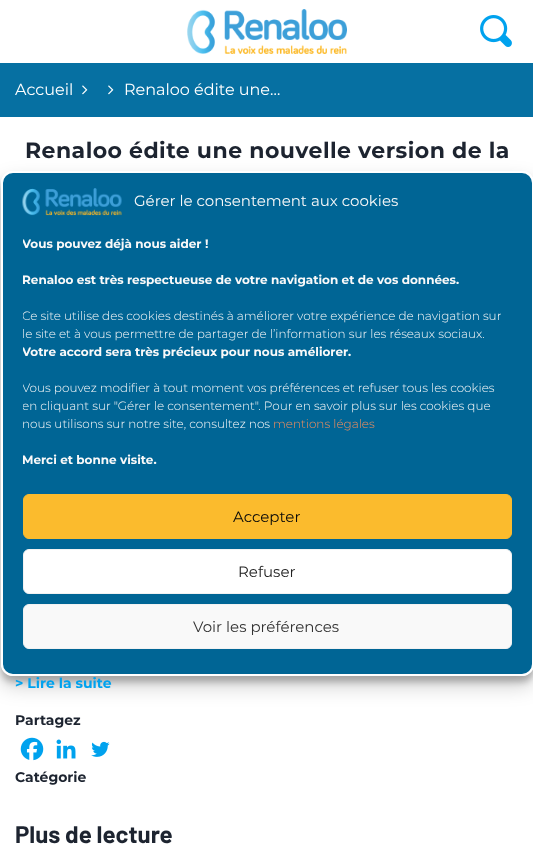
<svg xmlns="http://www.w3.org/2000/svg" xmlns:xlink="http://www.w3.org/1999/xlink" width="533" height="847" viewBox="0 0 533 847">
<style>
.cls-1{font:16px Montserrat;fill:#ffffff}
.cls-2{font:bold 22px Montserrat;letter-spacing:0.45px;fill:#1d2430}
.cls-3{font:bold 14px Montserrat;fill:#00a2ee}
.cls-4{font:bold 14px Montserrat;fill:#1d2430}
.cls-5{font:bold 24px Barlow;fill:#1d2430}
.cls-6{font:15px Montserrat;fill:#f9f9f9}
.cls-7{font:bold 12px Montserrat;fill:#f9f9f9}
.cls-8{font:300 12px Montserrat;fill:#f9f9f9}
.cls-9{font:300 12px Montserrat;fill:#f48f5d}
.cls-10{font:15px Montserrat;fill:#0a0a0a}
.cls-11{font:15px Montserrat;fill:#222222}
.cls-12{font:15px Montserrat;fill:#333333}
</style>
<defs>
<clipPath id="clip1"><path d="M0 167H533V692H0ZM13 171H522C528.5 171 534 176.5 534 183V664C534 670.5 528.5 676 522 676H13C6.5 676 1 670.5 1 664V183C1 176.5 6.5 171 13 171Z" clip-rule="evenodd"/></clipPath>
<clipPath id="clip2"><path d="M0 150H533V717H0ZM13 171H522C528.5 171 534 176.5 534 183V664C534 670.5 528.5 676 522 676H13C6.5 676 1 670.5 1 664V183C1 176.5 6.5 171 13 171Z" clip-rule="evenodd"/></clipPath>
<clipPath id="clip3"><rect x="23" y="235" width="489" height="239"/></clipPath>
</defs>
<rect width="100%" height="100%" fill="#ffffff"/>
<image xlink:href="image0.png" x="187" y="9" width="160" height="45"/>
<image xlink:href="image1.png" x="480" y="15" width="32" height="32"/>
<rect fill="#0670a2" x="0" y="63" width="533" height="54"/>
<image xlink:href="image2.png" x="82" y="85" width="6" height="10"/>
<image xlink:href="image2.png" x="108" y="85" width="6" height="10"/>
<image xlink:href="image3.png" x="20" y="737" width="24" height="24"/>
<image xlink:href="image4.png" x="56" y="739" width="20" height="20"/>
<image xlink:href="image5.png" x="91" y="741" width="19" height="16"/>
<g clip-path="url(#clip1)">
<rect fill="#000000" fill-opacity="0.23" filter="blur(3px)" x="1" y="177" width="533" height="505" rx="12"/>
</g>
<g clip-path="url(#clip2)">
<rect fill="#000000" fill-opacity="0.19" filter="blur(10px)" x="1" y="181" width="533" height="505" rx="12"/>
</g>
<rect fill="#006595" stroke="#ffffff" stroke-width="2" x="2" y="172" width="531" height="503" rx="11"/>
<image xlink:href="image6.png" x="22" y="188" width="100" height="28"/>
<rect fill="#fbbb2d" stroke="#fbbb2d" x="23.5" y="494.5" width="488" height="44" rx="5.5"/>
<rect fill="#ffffff" stroke="#f2f2f2" x="23.5" y="549.5" width="488" height="44" rx="5.5"/>
<rect fill="#f9f9f9" stroke="#f2f2f2" x="23.5" y="604.5" width="488" height="44" rx="5.5"/>
<text class="cls-1" x="15" y="95">Accueil</text>
<text class="cls-1" x="124" y="95">Renaloo édite une…</text>
<text class="cls-2" x="25" y="158">Renaloo édite une nouvelle version de la</text>
<text class="cls-3" x="15" y="688">&gt; Lire la suite</text>
<text class="cls-4" x="15" y="725">Partagez</text>
<text class="cls-4" x="15" y="782">Catégorie</text>
<text class="cls-5" x="15" y="843">Plus de lecture</text>
<text class="cls-6" x="134" y="206">Gérer le consentement aux cookies</text>
<g clip-path="url(#clip3)">
<text class="cls-7" x="22" y="248">Vous pouvez déjà nous aider !</text>
</g>
<text class="cls-7" x="22" y="284">Renaloo est très respectueuse de votre navigation et de vos données.</text>
<g clip-path="url(#clip3)">
<text class="cls-8" x="22" y="320">Ce site utilise des cookies destinés à améliorer votre expérience de navigation sur</text>
</g>
<text class="cls-8" x="22" y="338">le site et à vous permettre de partager de l’information sur les réseaux sociaux.</text>
<g clip-path="url(#clip3)">
<text class="cls-7" x="22" y="356">Votre accord sera très précieux pour nous améliorer.</text>
<text class="cls-8"><tspan x="22" y="392">Vous pouvez modifier à tout moment vos préférences et refuser tous les cookies</tspan><tspan x="22" y="410">en cliquant sur "Gérer le consentement". Pour en savoir plus sur les cookies que</tspan></text>
</g>
<text class="cls-8" x="22" y="428">nous utilisons sur notre site, consultez nos</text>
<text class="cls-9" x="273" y="428">mentions légales</text>
<text class="cls-7" x="22" y="464">Merci et bonne visite.</text>
<text class="cls-10" x="233" y="522">Accepter</text>
<text class="cls-11" x="238" y="577">Refuser</text>
<text class="cls-12" x="193" y="632">Voir les préférences</text>
</svg>
